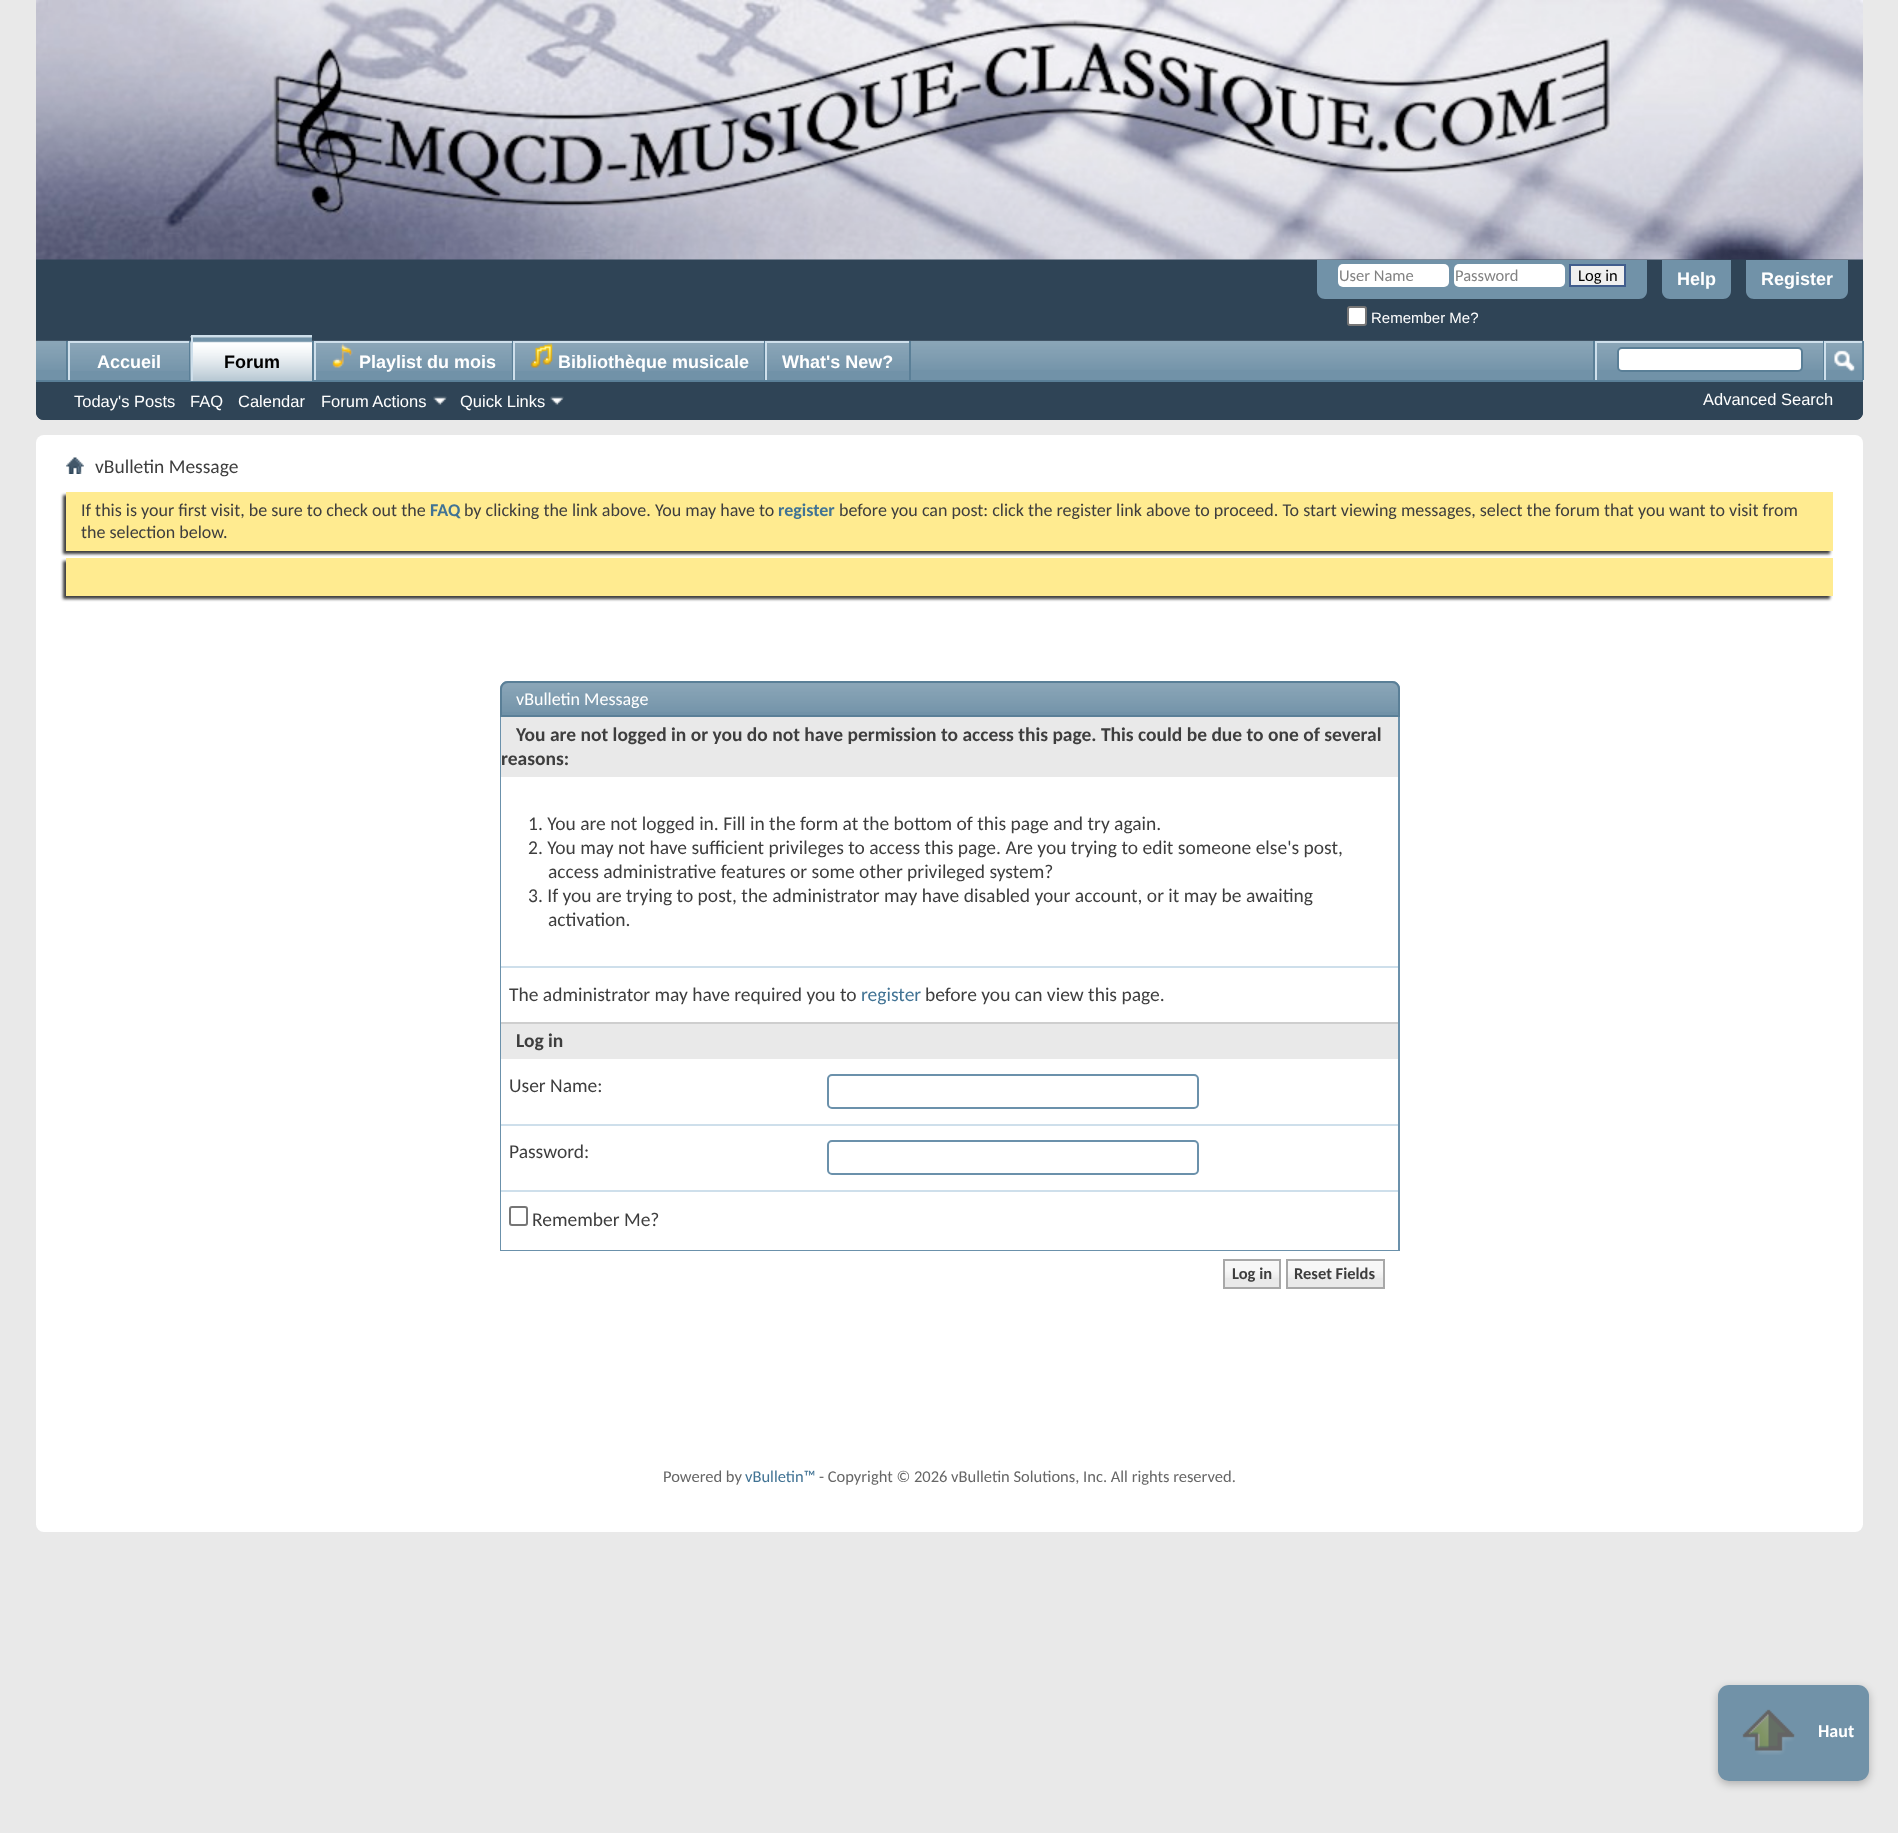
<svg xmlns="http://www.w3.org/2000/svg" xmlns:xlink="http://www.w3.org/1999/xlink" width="1898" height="1833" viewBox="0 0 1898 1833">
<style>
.cls-1{font:16.5px Carlito;fill:#828282}
.cls-2{font:16.5px Carlito;fill:#000000}
.cls-3{font:15px Liberation Sans;fill:#ffffff}
.cls-4{font:bold 18px Liberation Sans;fill:#ffffff}
.cls-5{font:bold 18px Liberation Sans;fill:#000000}
.cls-6{font:16.5px Liberation Sans;fill:#ffffff}
.cls-7{font:19.5px Carlito;fill:#3e3e3e}
.cls-8{font:18px Carlito;fill:#3e3e3e}
.cls-9{font:bold 18px Carlito;fill:#417394}
.cls-10{font:18px Carlito;fill:#ffffff}
.cls-11{font:bold 19.5px Carlito;fill:#3e3e3e}
.cls-12{font:19.5px Carlito;fill:#417394}
.cls-13{font:bold 16.5px Carlito;fill:#3e3e3e}
.cls-14{font:16.5px Carlito;fill:#666666}
.cls-15{font:16.5px Carlito;fill:#417394}
.cls-16{font:bold 18px Carlito;fill:#ffffff}
</style>
<rect width="100%" height="100%" fill="#e9e9e9"/>
<path fill="#2f4456" d="M36 0H1863V412C1863 416.5 1859.5 420 1855 420H44C39.5 420 36 416.5 36 412Z"/>
<image xlink:href="image0.png" x="36" y="0" width="1827" height="260"/>
<path fill="#7192a8" d="M1317 260H1647V291C1647 295.5 1643.5 299 1639 299H1325C1320.5 299 1317 295.5 1317 291Z"/>
<rect fill="#ffffff" x="1338" y="264" width="111" height="23" rx="5"/>
<rect fill="#ffffff" x="1454" y="264" width="111" height="23" rx="5"/>
<rect fill="#efefef" stroke="#415d8d" stroke-width="2" x="1570" y="265" width="55" height="21"/>
<rect fill="#ffffff" stroke="#767676" stroke-width="2" x="1348" y="307" width="18" height="18" rx="2"/>
<path fill="#7192a8" d="M1662 260H1731V291C1731 295.5 1727.5 299 1723 299H1670C1665.5 299 1662 295.5 1662 291Z"/>
<path fill="#7192a8" d="M1746 260H1848V291C1848 295.5 1844.5 299 1840 299H1754C1749.5 299 1746 295.5 1746 291Z"/>
<path fill="#2f4456" d="M36 341H1863V412C1863 416.5 1859.5 420 1855 420H44C39.5 420 36 416.5 36 412Z"/>
<rect fill="#7192a8" x="36" y="341" width="1826" height="39"/>
<image xlink:href="image1.png" x="36" y="340" width="1827" height="30"/>
<rect fill="#5a7f97" x="189" y="341" width="2" height="40"/>
<rect fill="#5a7f97" x="66" y="341" width="2" height="40"/>
<rect fill="#7192a8" x="70" y="343" width="119" height="27"/>
<image xlink:href="image2.png" x="67" y="342" width="122" height="29"/>
<rect fill="#cedfeb" x="68" y="341" width="121" height="2"/>
<rect fill="#cedfeb" x="68" y="341" width="2" height="40"/>
<rect fill="#5a7f97" x="512" y="341" width="1" height="40"/>
<rect fill="#7192a8" x="316" y="343" width="196" height="27"/>
<rect fill="#5a7f97" x="312" y="341" width="2" height="39"/>
<image xlink:href="image3.png" x="313" y="342" width="199" height="29"/>
<rect fill="#cedfeb" x="314" y="341" width="198" height="2"/>
<rect fill="#cedfeb" x="314" y="341" width="2" height="40"/>
<image xlink:href="image4.png" x="332" y="343" width="21" height="25"/>
<rect fill="#5a7f97" x="764" y="341" width="1" height="40"/>
<rect fill="#7192a8" x="515" y="343" width="249" height="27"/>
<image xlink:href="image5.png" x="515" y="343" width="249" height="28"/>
<rect fill="#cedfeb" x="513" y="341" width="251" height="2"/>
<rect fill="#cedfeb" x="513" y="341" width="2" height="40"/>
<image xlink:href="image6.png" x="530" y="343" width="23" height="25"/>
<rect fill="#5a7f97" x="909" y="341" width="2" height="40"/>
<rect fill="#7192a8" x="767" y="343" width="142" height="27"/>
<image xlink:href="image7.png" x="767" y="343" width="142" height="28"/>
<rect fill="#cedfeb" x="765" y="341" width="144" height="2"/>
<rect fill="#cedfeb" x="765" y="341" width="2" height="40"/>
<rect fill="#5a7f97" x="36" y="380" width="1827" height="2"/>
<rect fill="#7192a8" x="193" y="337" width="119" height="44"/>
<image xlink:href="image8.png" x="190" y="336" width="122" height="45"/>
<rect fill="#cedfeb" x="191" y="335" width="121" height="2"/>
<rect fill="#cedfeb" x="191" y="335" width="2" height="46"/>
<image xlink:href="image9.png" x="433" y="396" width="14" height="9"/>
<image xlink:href="image9.png" x="550" y="396" width="14" height="9"/>
<rect fill="#5a7f97" x="1593" y="341" width="2" height="39"/>
<rect fill="#cedfeb" x="1595" y="341" width="228" height="2"/>
<rect fill="#cedfeb" x="1595" y="341" width="2" height="39"/>
<rect fill="#ffffff" stroke="#5a7f97" stroke-width="2" x="1618" y="348" width="184" height="23" rx="4"/>
<rect fill="#5a7f97" x="1862" y="341" width="2" height="39"/>
<rect fill="#5a7f97" x="1823" y="341" width="1" height="39"/>
<rect fill="#cedfeb" x="1824" y="341" width="38" height="2"/>
<rect fill="#cedfeb" x="1824" y="341" width="2" height="39"/>
<image xlink:href="image10.png" x="1834" y="350" width="21" height="22"/>
<rect fill="#ffffff" x="36" y="435" width="1827" height="1097" rx="8"/>
<image xlink:href="image11.png" x="66" y="457" width="18" height="17"/>
<rect fill="#3e3e3e" filter="blur(1.5px)" x="63" y="495" width="1767" height="59"/>
<rect fill="#ffeb90" x="66" y="492" width="1767" height="59"/>
<rect fill="#3e3e3e" filter="blur(1.5px)" x="63" y="561" width="1767" height="38"/>
<rect fill="#ffeb90" x="66" y="558" width="1767" height="38"/>
<path fill="#7192a8" d="M508 681H1392C1396.5 681 1400 684.5 1400 689V717H500V689C500 684.5 503.5 681 508 681Z"/>
<image xlink:href="image12.png" x="500" y="682" width="900" height="30"/>
<path fill="none" stroke="#5a7f97" stroke-width="2" d="M508 682H1392C1396 682 1399 685 1399 689V716H501V689C501 685 504 682 508 682Z"/>
<rect fill="#6b91ab" x="1398" y="717" width="2" height="534"/>
<rect fill="#6b91ab" x="500" y="1250" width="900" height="1"/>
<rect fill="#6b91ab" x="500" y="717" width="2" height="534"/>
<rect fill="#e9e9e9" x="501" y="717" width="897" height="60"/>
<rect fill="#ffffff" x="501" y="777" width="1" height="189"/>
<rect fill="#ffffff" x="501" y="968" width="1" height="54"/>
<rect fill="#cedfeb" x="501" y="966" width="897" height="2"/>
<rect fill="#e9e9e9" x="501" y="1024" width="897" height="35"/>
<rect fill="#cecece" x="501" y="1022" width="897" height="2"/>
<rect fill="#ffffff" x="501" y="1059" width="1" height="65"/>
<rect fill="none" stroke="#6b91ab" stroke-width="2" x="828" y="1075" width="370" height="33" rx="4"/>
<rect fill="#ffffff" x="501" y="1126" width="1" height="64"/>
<rect fill="#cedfeb" x="501" y="1124" width="897" height="2"/>
<rect fill="none" stroke="#6b91ab" stroke-width="2" x="828" y="1141" width="370" height="33" rx="4"/>
<rect fill="#ffffff" x="501" y="1192" width="1" height="58"/>
<rect fill="#cedfeb" x="501" y="1190" width="897" height="2"/>
<rect fill="none" stroke="#767676" stroke-width="2" x="510" y="1207" width="17" height="18" rx="2"/>
<rect fill="#e9e9e9" x="1225" y="1261" width="54" height="26"/>
<image xlink:href="image13.png" x="1225" y="1261" width="54" height="17"/>
<rect fill="none" stroke="#a8a8a8" stroke-width="2" x="1224" y="1260" width="56" height="28"/>
<rect fill="#e9e9e9" x="1288" y="1261" width="95" height="26"/>
<image xlink:href="image14.png" x="1288" y="1261" width="95" height="17"/>
<rect fill="none" stroke="#a8a8a8" stroke-width="2" x="1287" y="1260" width="97" height="28"/>
<rect fill="#000000" fill-opacity="0.25" filter="blur(4.5px)" x="1718" y="1688" width="151" height="96" rx="11"/>
<rect fill="#7192a8" x="1718" y="1685" width="151" height="96" rx="11"/>
<image xlink:href="image15.png" x="1742" y="1709" width="53" height="46"/>
<text class="cls-1" x="1339" y="281">User Name</text>
<text class="cls-1" x="1455" y="281">Password</text>
<text class="cls-2" x="1578" y="281">Log in</text>
<text class="cls-3" x="1371" y="323">Remember Me?</text>
<text class="cls-4" x="1677" y="285">Help</text>
<text class="cls-4" x="1761" y="285">Register</text>
<text class="cls-4" x="97" y="368">Accueil</text>
<text class="cls-4" x="359" y="368">Playlist du mois</text>
<text class="cls-4" x="558" y="368">Bibliothèque musicale</text>
<text class="cls-4" x="782" y="368">What's New?</text>
<text class="cls-5" x="224" y="368">Forum</text>
<text class="cls-6" x="74" y="407">Today's Posts</text>
<text class="cls-6" x="190" y="407">FAQ</text>
<text class="cls-6" x="238" y="407">Calendar</text>
<text class="cls-6" x="321" y="407">Forum Actions</text>
<text class="cls-6" x="460" y="407">Quick Links</text>
<text class="cls-6" x="1703" y="405">Advanced Search</text>
<text class="cls-7" x="95" y="473">vBulletin Message</text>
<text class="cls-8" x="81" y="516">If this is your first visit, be sure to check out the</text>
<text class="cls-9" x="430" y="516">FAQ</text>
<text class="cls-8" x="464" y="516">by clicking the link above. You may have to</text>
<text class="cls-9" x="778" y="516">register</text>
<text class="cls-8" x="839" y="516">before you can post: click the register link above to proceed. To start viewing messages, select the forum that you want to visit from</text>
<text class="cls-8" x="81" y="538">the selection below.</text>
<text class="cls-10" x="516" y="705">vBulletin Message</text>
<text class="cls-11" x="516" y="741">You are not logged in or you do not have permission to access this page. This could be due to one of several</text>
<text class="cls-11" x="501" y="765">reasons:</text>
<text class="cls-7"><tspan x="528" y="830">1. You are not logged in. Fill in the form at the bottom of this page and try again.</tspan><tspan x="528" y="854">2. You may not have sufficient privileges to access this page. Are you trying to edit someone else's post,</tspan></text>
<text class="cls-7" x="548" y="878">access administrative features or some other privileged system?</text>
<text class="cls-7" x="528" y="902">3. If you are trying to post, the administrator may have disabled your account, or it may be awaiting</text>
<text class="cls-7" x="548" y="926">activation.</text>
<text class="cls-7" x="509" y="1001">The administrator may have required you to</text>
<text class="cls-12" x="861" y="1001">register</text>
<text class="cls-7" x="925" y="1001">before you can view this page.</text>
<text class="cls-11" x="516" y="1047">Log in</text>
<text class="cls-7" x="509" y="1092">User Name:</text>
<text class="cls-7" x="509" y="1158">Password:</text>
<text class="cls-7" x="532" y="1226">Remember Me?</text>
<text class="cls-13" x="1232" y="1279">Log in</text>
<text class="cls-13" x="1294" y="1279">Reset Fields</text>
<text class="cls-14" x="663" y="1482">Powered by</text>
<text class="cls-15" x="745" y="1482">vBulletin™</text>
<text class="cls-14" x="819" y="1482">- Copyright © 2026 vBulletin Solutions, Inc. All rights reserved.</text>
<text class="cls-16" x="1818" y="1737">Haut</text>
</svg>
